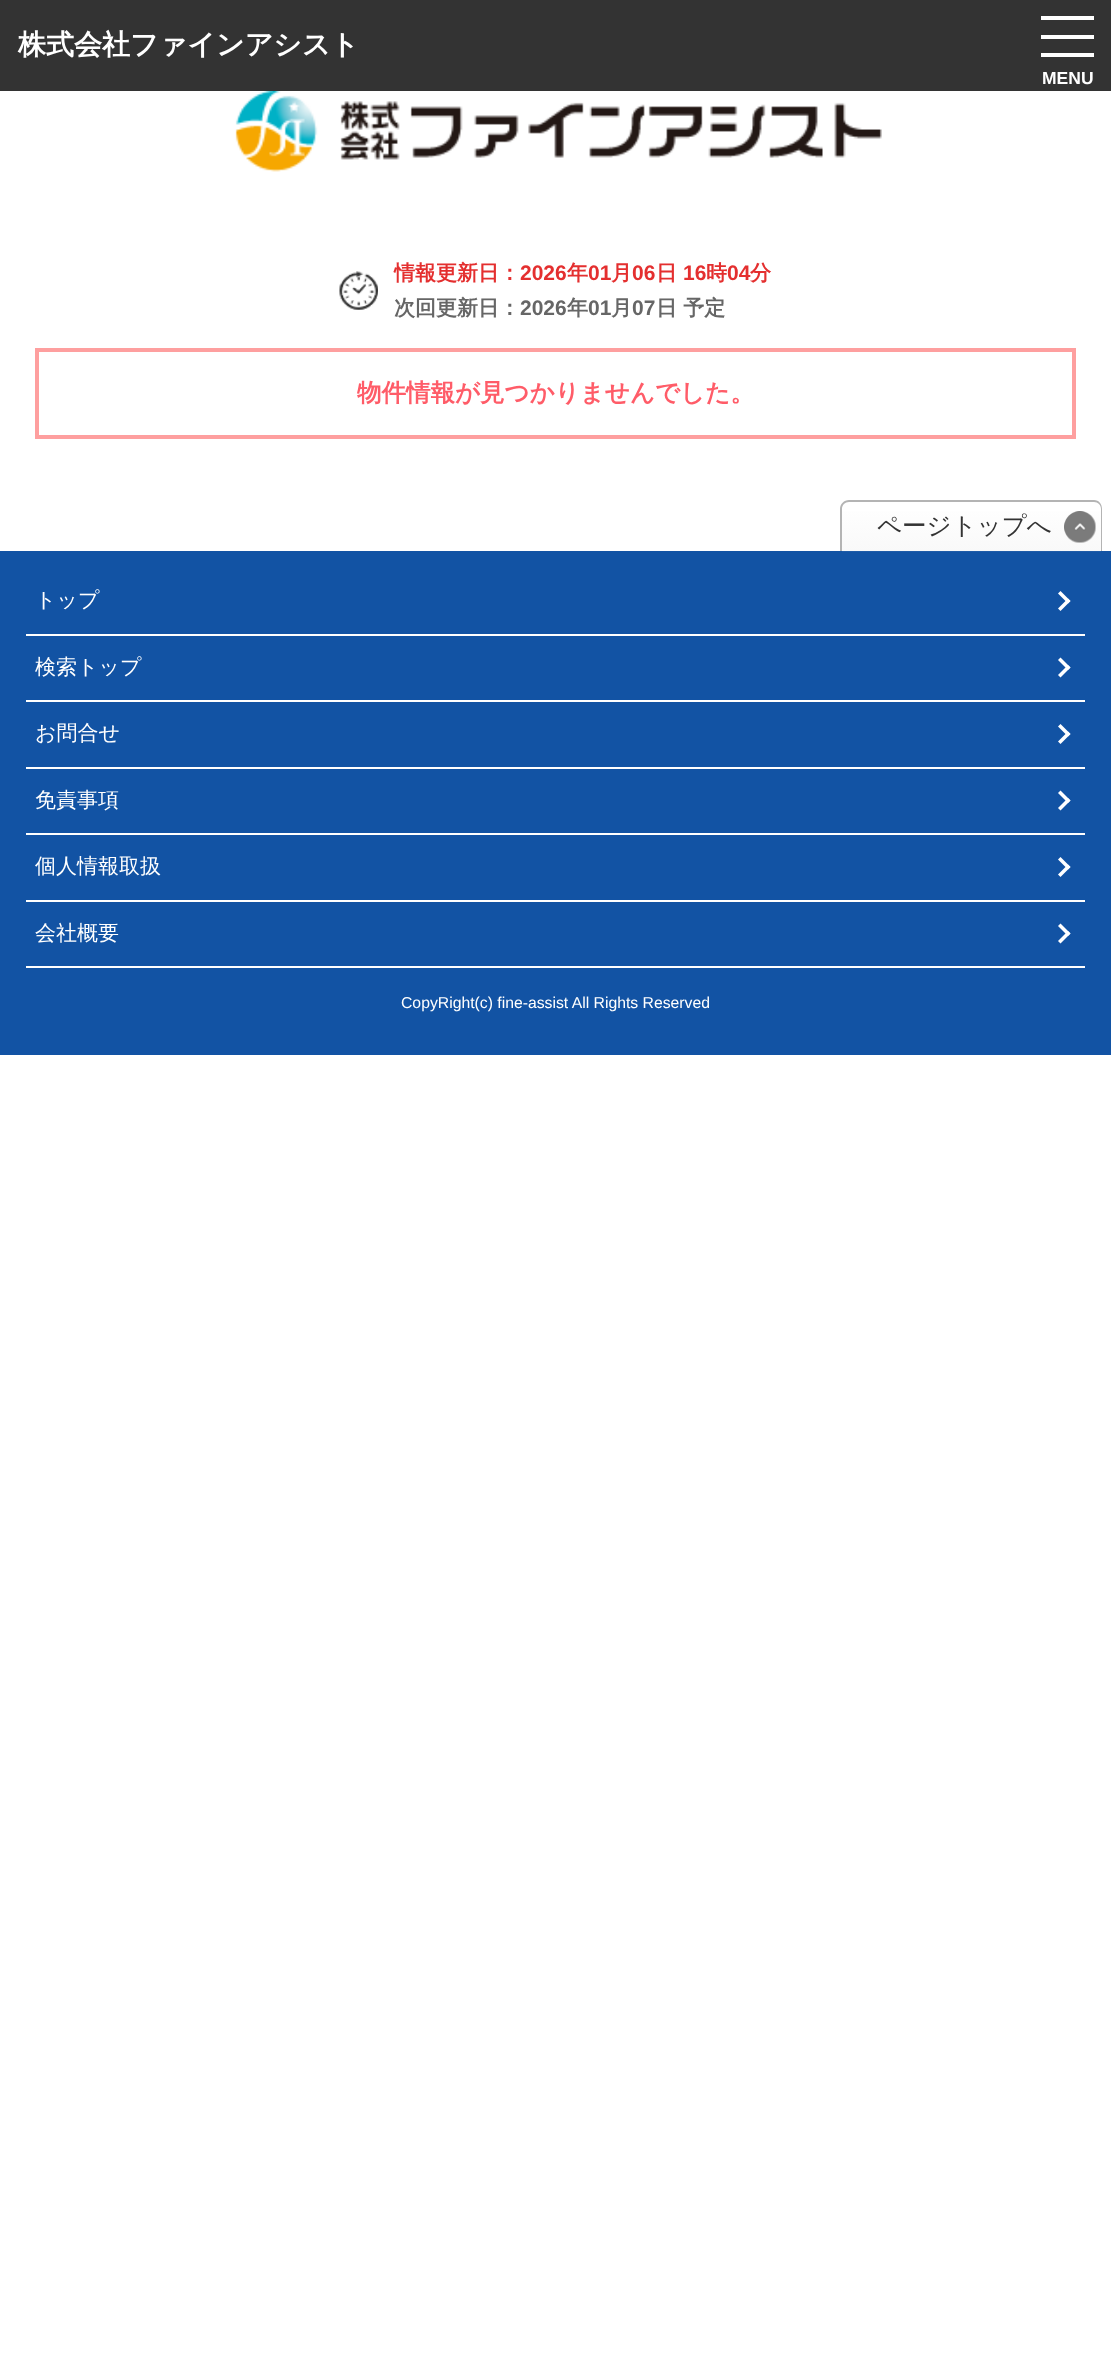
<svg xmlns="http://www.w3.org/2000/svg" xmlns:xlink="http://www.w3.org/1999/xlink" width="1111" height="2364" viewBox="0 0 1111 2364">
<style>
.cls-1{font:bold 28px WenQuanYi Zen Hei;fill:#ffffff}
.cls-2{font:bold 21px WenQuanYi Zen Hei;fill:#e42f2f}
.cls-3{font:bold 21px Liberation Sans;fill:#e42f2f}
.cls-4{font:bold 21px WenQuanYi Zen Hei;fill:#666666}
.cls-5{font:bold 21px Liberation Sans;fill:#666666}
.cls-6{font:bold 17.5px Liberation Sans;fill:#ffffff}
.cls-7{font:bold 24.5px WenQuanYi Zen Hei;fill:#ff5c68}
.cls-8{font:500 24.5px WenQuanYi Zen Hei;fill:#333333}
.cls-9{font:500 21px WenQuanYi Zen Hei;fill:#ffffff}
.cls-10{font:15.75px Liberation Sans;fill:#ffffff}
</style>
<rect width="100%" height="100%" fill="#ffffff"/>
<rect fill="#333333" x="0" y="0" width="1111" height="91"/>
<image xlink:href="image0.png" x="235" y="91" width="647" height="81"/>
<image xlink:href="image1.png" x="339" y="271" width="39" height="39"/>
<rect fill="#ffffff" x="1041" y="16" width="53" height="4"/>
<rect fill="#ffffff" x="1041" y="35" width="53" height="4"/>
<rect fill="#ffffff" x="1041" y="53" width="53" height="4"/>
<rect fill="none" stroke="#fe9f9f" stroke-width="4" x="37" y="350" width="1037" height="87"/>
<rect fill="#1253a4" x="0" y="551" width="1111" height="504"/>
<image xlink:href="image2.png" x="842" y="511" width="259" height="41"/>
<path fill="#b4b4b4" fill-rule="evenodd" d="M849 500H1094C1099 500 1102 504 1102 509V551H840V509C840 504 844 500 849 500ZM849 502H1094C1098 502 1101 505 1101 509V551H842V509C842 505 845 502 849 502Z"/>
<rect fill="#ffffff" x="26" y="634" width="1059" height="2"/>
<path fill="#ffffff" d="M1060.5 591L1070.5 601L1068 603.5L1058 593.5Z"/>
<path fill="#ffffff" d="M1068 598.5L1070.5 601L1060.5 611L1058 608.5Z"/>
<rect fill="#ffffff" x="26" y="700" width="1059" height="2"/>
<path fill="#ffffff" d="M1060.5 657.5L1070.5 667.5L1068 670L1058 660Z"/>
<path fill="#ffffff" d="M1068 665L1070.5 667.5L1060.5 677.5L1058 675Z"/>
<rect fill="#ffffff" x="26" y="767" width="1059" height="2"/>
<path fill="#ffffff" d="M1060.5 724L1070.5 734L1068 736.5L1058 726.5Z"/>
<path fill="#ffffff" d="M1068 731.5L1070.5 734L1060.5 744L1058 741.5Z"/>
<rect fill="#ffffff" x="26" y="833" width="1059" height="2"/>
<path fill="#ffffff" d="M1060.5 790.5L1070.5 800.5L1068 803L1058 793Z"/>
<path fill="#ffffff" d="M1068 798L1070.5 800.5L1060.5 810.5L1058 808Z"/>
<rect fill="#ffffff" x="26" y="900" width="1059" height="2"/>
<path fill="#ffffff" d="M1060.5 857L1070.5 867L1068 869.5L1058 859.5Z"/>
<path fill="#ffffff" d="M1068 864.5L1070.5 867L1060.5 877L1058 874.5Z"/>
<rect fill="#ffffff" x="26" y="966" width="1059" height="2"/>
<path fill="#ffffff" d="M1060.5 923.5L1070.5 933.5L1068 936L1058 926Z"/>
<path fill="#ffffff" d="M1068 931L1070.5 933.5L1060.5 943.5L1058 941Z"/>
<text class="cls-1" x="18" y="54">株式会社ファインアシスト</text>
<text class="cls-2" x="394" y="280">情報更新日：</text>
<text class="cls-3" x="520" y="280">2026</text>
<text class="cls-2" x="567" y="280">年</text>
<text class="cls-3" x="588" y="280">01</text>
<text class="cls-2" x="611" y="280">月</text>
<text class="cls-3" x="632" y="280">06</text>
<text class="cls-2" x="656" y="280">日</text>
<text class="cls-3" x="683" y="280">16</text>
<text class="cls-2" x="706" y="280">時</text>
<text class="cls-3" x="727" y="280">04</text>
<text class="cls-2" x="750" y="280">分</text>
<text class="cls-4" x="394" y="315">次回更新日：</text>
<text class="cls-5" x="520" y="315">2026</text>
<text class="cls-4" x="567" y="315">年</text>
<text class="cls-5" x="588" y="315">01</text>
<text class="cls-4" x="611" y="315">月</text>
<text class="cls-5" x="632" y="315">07</text>
<text class="cls-4" x="656" y="315">日 予定</text>
<text class="cls-6" x="1042" y="84">MENU</text>
<text class="cls-7" x="357" y="401">物件情報が見つかりませんでした。</text>
<text class="cls-8" x="877" y="534">ページトップへ</text>
<text class="cls-9" x="35" y="607">トップ</text>
<text class="cls-9" x="35" y="674">検索トップ</text>
<text class="cls-9" x="35" y="740">お問合せ</text>
<text class="cls-9" x="35" y="807">免責事項</text>
<text class="cls-9" x="35" y="873">個人情報取扱</text>
<text class="cls-9" x="35" y="940">会社概要</text>
<text class="cls-10" x="401" y="1008">CopyRight(c) fine-assist All Rights Reserved</text>
</svg>
